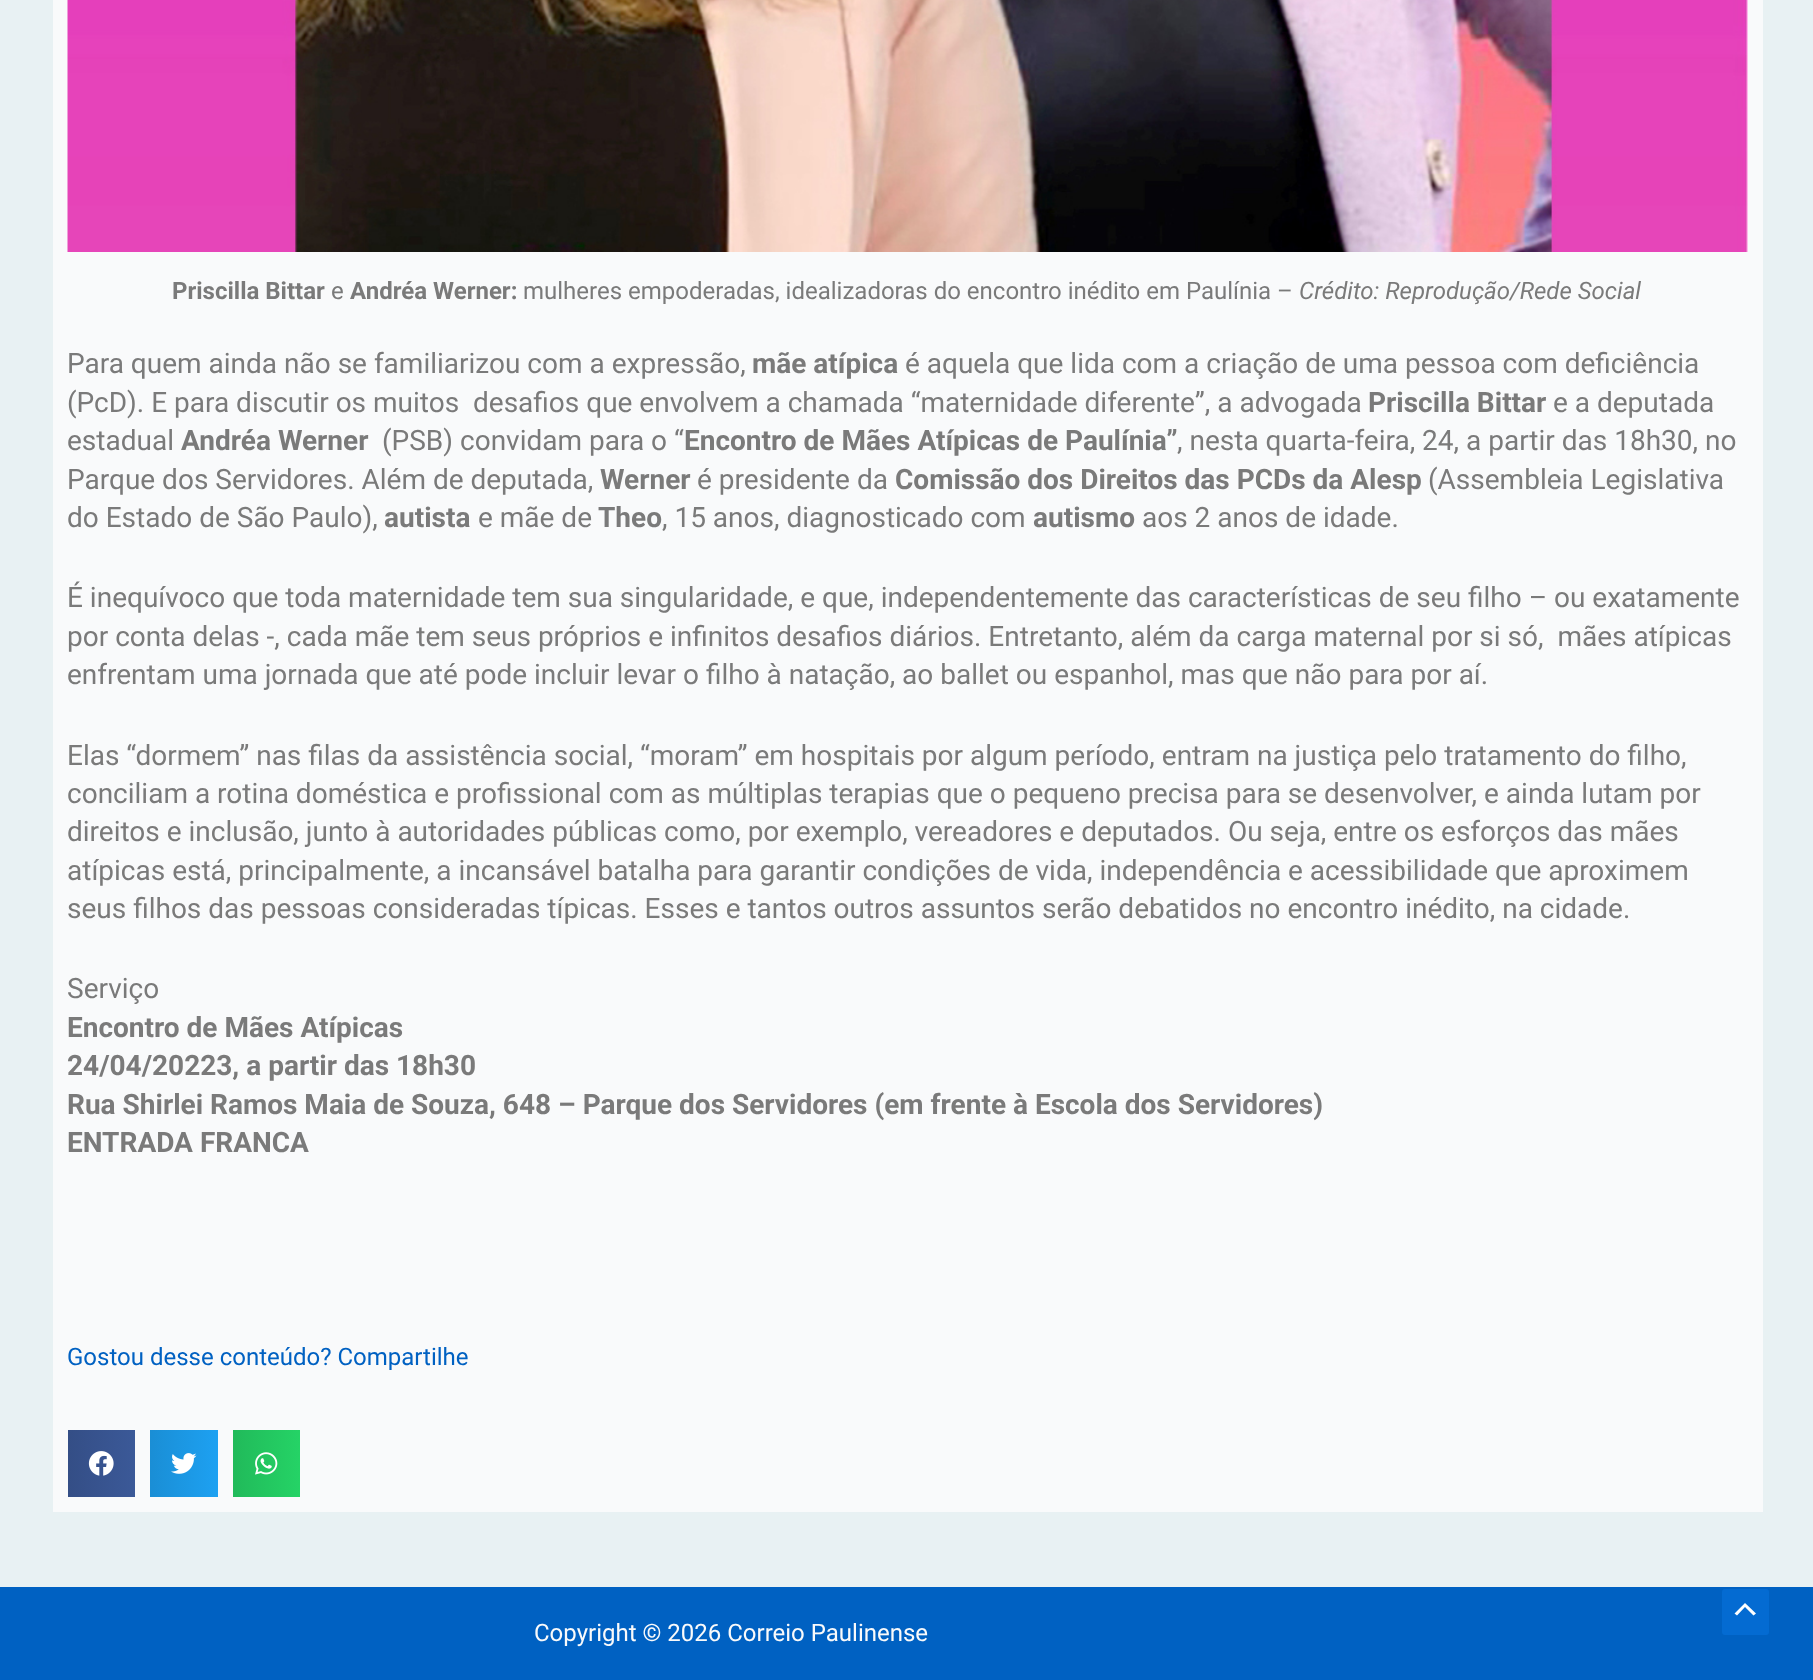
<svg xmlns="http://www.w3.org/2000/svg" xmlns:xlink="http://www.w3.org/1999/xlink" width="1813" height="1680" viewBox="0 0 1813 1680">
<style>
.cls-1{font:bold 24px Roboto;fill:#7a7a7a}
.cls-2{font:24px Roboto;fill:#7a7a7a}
.cls-3{font:italic 24px Roboto;fill:#7a7a7a}
.cls-4{font:28px Roboto;fill:#7a7a7a}
.cls-5{font:bold 28px Roboto;fill:#7a7a7a}
.cls-6{font:24px Roboto;fill:#0061c2}
.cls-7{font:24px Roboto;fill:#f9fafb}
</style>
<defs>
<linearGradient id="g1" gradientUnits="userSpaceOnUse" x1="68" y1="1463" x2="135" y2="1463"><stop offset="0" stop-color="#344e86"/><stop offset="1" stop-color="#3b5998"/></linearGradient>
<linearGradient id="g2" gradientUnits="userSpaceOnUse" x1="150" y1="1463" x2="218" y2="1463"><stop offset="0" stop-color="#1a8ed5"/><stop offset="1" stop-color="#1da1f2"/></linearGradient>
<linearGradient id="g3" gradientUnits="userSpaceOnUse" x1="233" y1="1463" x2="300" y2="1463"><stop offset="0" stop-color="#21ba5a"/><stop offset="1" stop-color="#25d366"/></linearGradient>
</defs>
<rect width="100%" height="100%" fill="#e8f1f3"/>
<rect fill="#f9fafb" x="53" y="0" width="1710" height="1512"/>
<image xlink:href="image0.png" x="67" y="0" width="1681" height="252"/>
<rect fill="url(#g1)" x="68" y="1430" width="67" height="67"/>
<image xlink:href="image1.png" x="88" y="1451" width="26" height="25"/>
<rect fill="url(#g2)" x="150" y="1430" width="68" height="67"/>
<image xlink:href="image2.png" x="171" y="1453" width="26" height="21"/>
<rect fill="url(#g3)" x="233" y="1430" width="67" height="67"/>
<image xlink:href="image3.png" x="255" y="1452" width="23" height="23"/>
<rect fill="#0061c2" x="0" y="1587" width="1813" height="93"/>
<rect fill="#046bd2" x="1722" y="1589" width="47" height="46" rx="3"/>
<path fill="#ffffff" d="M1756 1613.5L1745 1603L1734.5 1613.5L1737 1615.5L1745 1607L1753.5 1615.5Z"/>
<text class="cls-1" x="172" y="299">Priscilla Bittar</text>
<text class="cls-2" x="331" y="299">e</text>
<text class="cls-1" x="350" y="299">Andréa Werner:</text>
<text class="cls-2" x="523" y="299">mulheres empoderadas, idealizadoras do encontro inédito em Paulínia –</text>
<text class="cls-3" x="1299" y="299">Crédito: Reprodução/Rede Social</text>
<text class="cls-4" x="67" y="373">Para quem ainda não se familiarizou com a expressão,</text>
<text class="cls-5" x="752" y="373">mãe atípica</text>
<text class="cls-4" x="905" y="373">é aquela que lida com a criação de uma pessoa com deficiência</text>
<text class="cls-4" xml:space="preserve" x="67" y="412">(PcD). E para discutir os muitos  desafios que envolvem a chamada “maternidade diferente”, a advogada</text>
<text class="cls-5" x="1368" y="412">Priscilla Bittar</text>
<text class="cls-4" x="1553" y="412">e a deputada</text>
<text class="cls-4" x="67" y="450">estadual</text>
<text class="cls-5" x="181" y="450">Andréa Werner</text>
<text class="cls-4" x="382" y="450">(PSB) convidam para o “</text>
<text class="cls-5" x="684" y="450">Encontro de Mães Atípicas de Paulínia”</text>
<text class="cls-4" x="1177" y="450">, nesta quarta-feira, 24, a partir das 18h30, no</text>
<text class="cls-4" x="67" y="489">Parque dos Servidores. Além de deputada,</text>
<text class="cls-5" x="600" y="489">Werner</text>
<text class="cls-4" x="697" y="489">é presidente da</text>
<text class="cls-5" x="895" y="489">Comissão dos Direitos das PCDs da Alesp</text>
<text class="cls-4" x="1428" y="489">(Assembleia Legislativa</text>
<text class="cls-4" x="67" y="527">do Estado de São Paulo),</text>
<text class="cls-5" x="384" y="527">autista</text>
<text class="cls-4" x="478" y="527">e mãe de</text>
<text class="cls-5" x="598" y="527">Theo</text>
<text class="cls-4" x="662" y="527">, 15 anos, diagnosticado com</text>
<text class="cls-5" x="1033" y="527">autismo</text>
<text class="cls-4" x="1142" y="527">aos 2 anos de idade.</text>
<text class="cls-4" xml:space="preserve"><tspan x="67" y="607">É inequívoco que toda maternidade tem sua singularidade, e que, independentemente das características de seu filho – ou exatamente</tspan><tspan x="67" y="646">por conta delas -, cada mãe tem seus próprios e infinitos desafios diários. Entretanto, além da carga maternal por si só,  mães atípicas</tspan><tspan x="67" y="684">enfrentam uma jornada que até pode incluir levar o filho à natação, ao ballet ou espanhol, mas que não para por aí.</tspan></text>
<text class="cls-4"><tspan x="67" y="765">Elas “dormem” nas filas da assistência social, “moram” em hospitais por algum período, entram na justiça pelo tratamento do filho,</tspan><tspan x="67" y="803">conciliam a rotina doméstica e profissional com as múltiplas terapias que o pequeno precisa para se desenvolver, e ainda lutam por</tspan><tspan x="67" y="841">direitos e inclusão, junto à autoridades públicas como, por exemplo, vereadores e deputados. Ou seja, entre os esforços das mães</tspan><tspan x="67" y="880">atípicas está, principalmente, a incansável batalha para garantir condições de vida, independência e acessibilidade que aproximem</tspan><tspan x="67" y="918">seus filhos das pessoas consideradas típicas. Esses e tantos outros assuntos serão debatidos no encontro inédito, na cidade.</tspan></text>
<text class="cls-4" x="67" y="998">Serviço</text>
<text class="cls-5"><tspan x="67" y="1037">Encontro de Mães Atípicas</tspan><tspan x="67" y="1075">24/04/20223, a partir das 18h30</tspan><tspan x="67" y="1114">Rua Shirlei Ramos Maia de Souza, 648 – Parque dos Servidores (em frente à Escola dos Servidores)</tspan><tspan x="67" y="1152">ENTRADA FRANCA</tspan></text>
<text class="cls-6" x="67" y="1365">Gostou desse conteúdo? Compartilhe</text>
<text class="cls-7" x="534" y="1641">Copyright © 2026 Correio Paulinense</text>
</svg>
